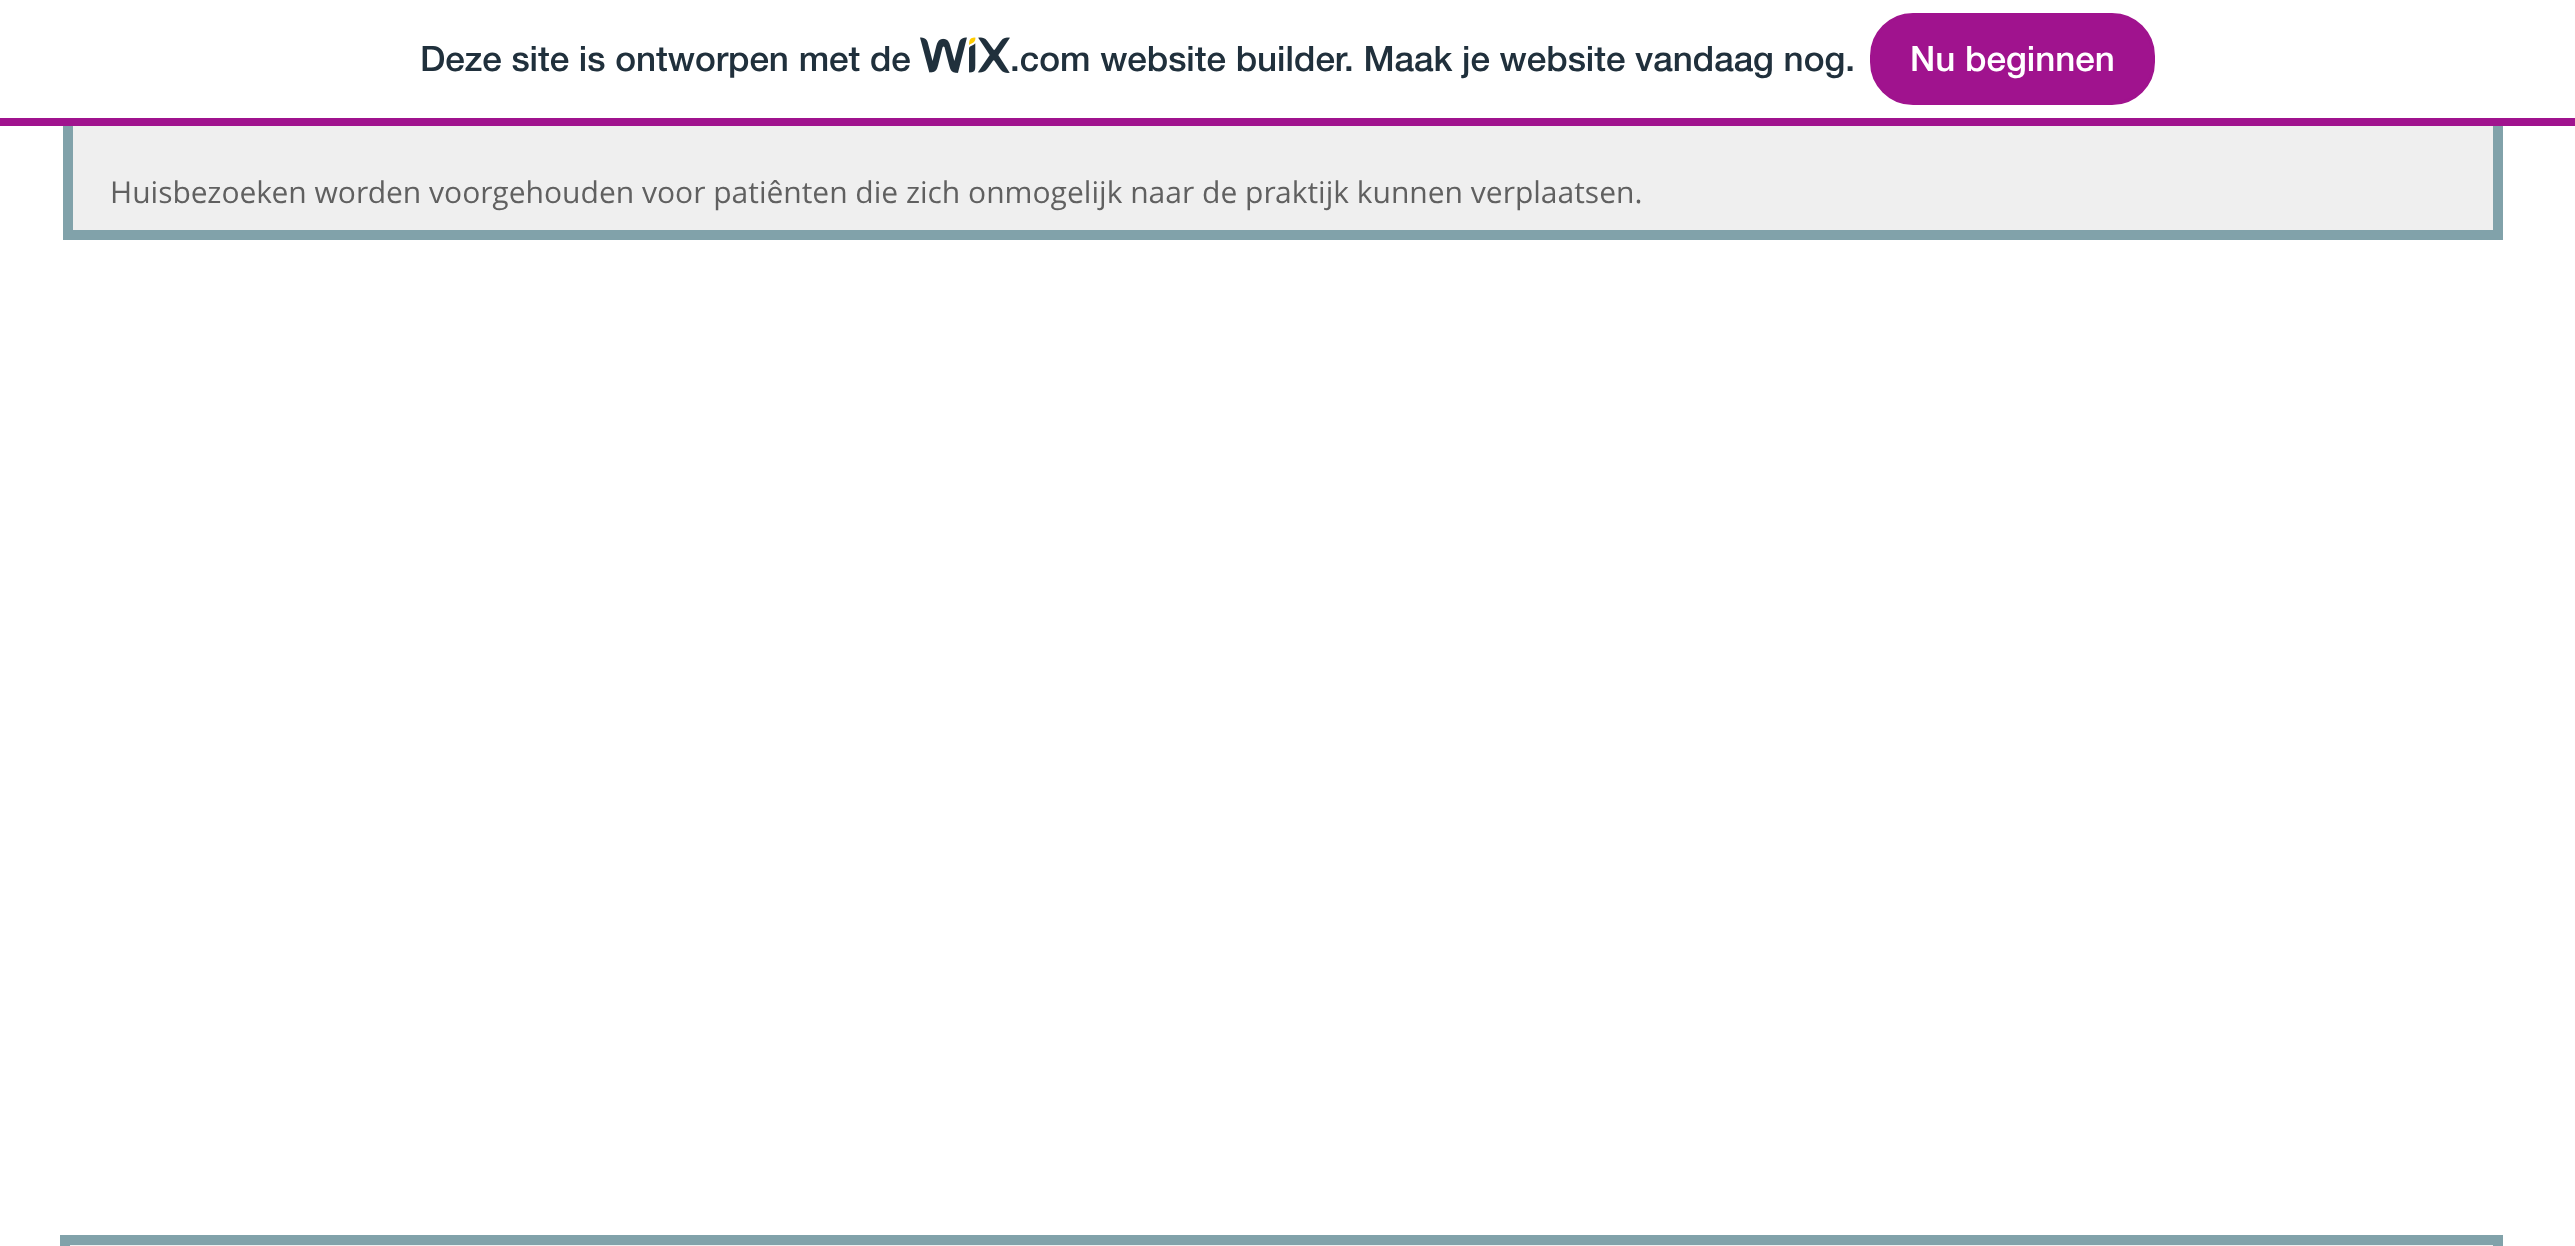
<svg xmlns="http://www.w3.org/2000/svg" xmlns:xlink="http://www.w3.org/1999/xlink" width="2575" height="1246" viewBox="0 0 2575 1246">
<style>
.cls-1{font:500 35px 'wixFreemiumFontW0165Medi';fill:#20303c}
.cls-2{font:500 35px 'wixFreemiumFontW0165Medi';fill:#ffffff}
.cls-3{font:30px Open Sans;fill:#606060}
</style>
<rect width="100%" height="100%" fill="#ffffff"/>
<rect fill="#efefef" x="73" y="126" width="2420" height="104"/>
<rect fill="none" stroke="#81a2aa" stroke-width="10" x="68" y="-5" width="2430" height="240"/>
<rect fill="#ffffff" x="63" y="0" width="2440" height="118"/>
<rect fill="#a0138e" x="0" y="118" width="2575" height="8"/>
<image xlink:href="image0.png" x="920" y="37" width="90" height="36"/>
<rect fill="#a0138e" stroke="#a0138e" stroke-width="3" x="1871.5" y="14.5" width="282" height="89" rx="41.5"/>
<rect fill="#efefef" stroke="#81a2aa" stroke-width="10" x="65" y="1240" width="2433" height="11"/>
<text class="cls-1" x="420" y="71">Deze site is ontworpen met de</text>
<text class="cls-1" x="1010" y="71">.com website builder. Maak je website vandaag nog.</text>
<text class="cls-2" x="1910" y="71">Nu beginnen</text>
<text class="cls-3" x="110" y="203">Huisbezoeken worden voorgehouden voor patiênten die zich onmogelijk naar de praktijk kunnen verplaatsen.</text>
</svg>
